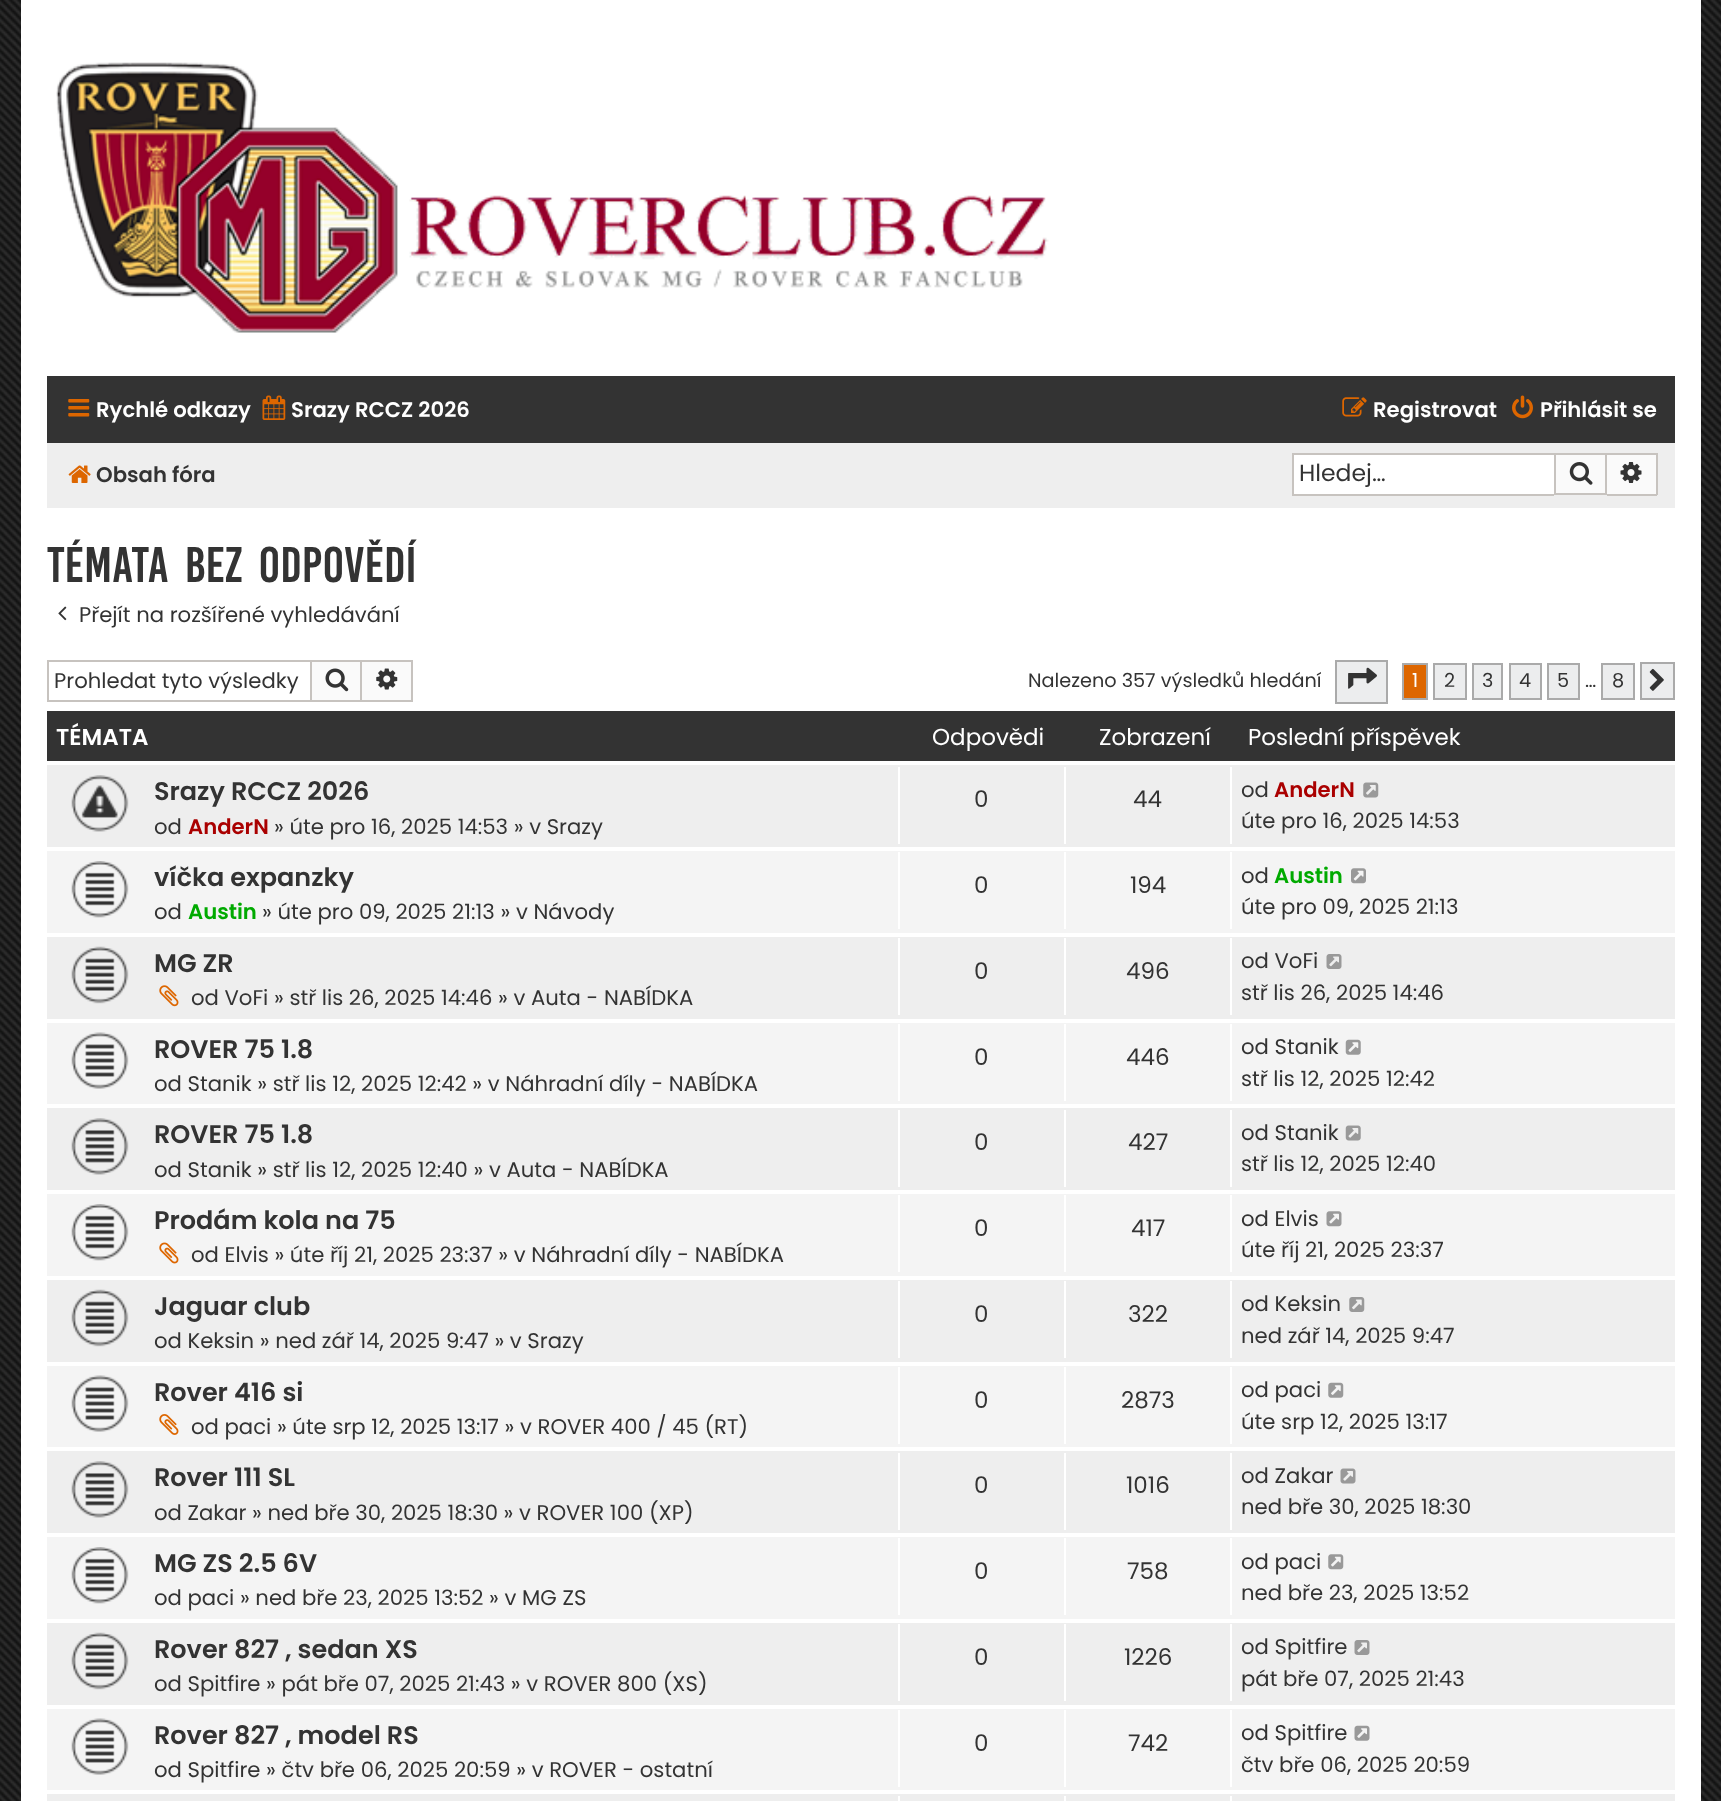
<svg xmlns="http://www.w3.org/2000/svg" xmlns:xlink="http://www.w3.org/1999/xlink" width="1721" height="1801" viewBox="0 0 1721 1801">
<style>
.cls-1{font:600 21.2px Poppins;fill:#ffffff}
.cls-2{font:600 21.2px Poppins;fill:#333333}
.cls-3{font:23.5px Poppins;fill:#333333}
.cls-4{font:38.5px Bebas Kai;fill:#333333}
.cls-5{font:21.2px Poppins;fill:#333333}
.cls-6{font:19.25px Poppins;fill:#333333}
.cls-7{font:19.25px Poppins;fill:#ffffff}
.cls-8{font:600 23px Poppins;fill:#ffffff}
.cls-9{font:23px Poppins;fill:#ffffff}
.cls-10{font:600 25.5px Poppins;fill:#333333}
.cls-11{font:600 21.2px Poppins;fill:#aa0000}
.cls-12{font:23px Poppins;fill:#333333}
.cls-13{font:600 21.2px Poppins;fill:#00aa00}
</style>
<rect width="100%" height="100%" fill="#ffffff"/>
<image xlink:href="image0.png" x="0" y="0" width="1721" height="1801"/>
<rect fill="#ffffff" x="21" y="0" width="1680" height="1801"/>
<image xlink:href="image1.png" x="56" y="62" width="993" height="271"/>
<rect fill="#333333" x="47" y="376" width="1628" height="67"/>
<image xlink:href="image2.png" x="68" y="399" width="22" height="18"/>
<image xlink:href="image3.png" x="262" y="395" width="24" height="25"/>
<image xlink:href="image4.png" x="1342" y="397" width="25" height="20"/>
<image xlink:href="image5.png" x="1512" y="395" width="21" height="24"/>
<rect fill="#eeeeee" x="47" y="443" width="1628" height="65"/>
<image xlink:href="image6.png" x="68" y="465" width="23" height="18"/>
<rect fill="#ffffff" x="1294" y="455" width="260" height="39"/>
<rect fill="#c7c3bf" x="1292" y="453" width="262" height="2"/>
<rect fill="#c7c3bf" x="1292" y="494" width="262" height="2"/>
<rect fill="#c7c3bf" x="1292" y="453" width="2" height="42"/>
<rect fill="#fafafa" stroke="#c7c3bf" stroke-width="2" x="1555" y="454" width="51" height="40"/>
<image xlink:href="image7.png" x="1569" y="462" width="24" height="23"/>
<rect fill="#fafafa" x="1607" y="455" width="49" height="39"/>
<rect fill="#c7c3bf" x="1607" y="453" width="50" height="2"/>
<rect fill="#c7c3bf" x="1656" y="453" width="2" height="42"/>
<rect fill="#c7c3bf" x="1607" y="494" width="50" height="2"/>
<image xlink:href="image8.png" x="1620" y="462" width="22" height="21"/>
<image xlink:href="image9.png" x="58" y="606" width="9" height="15"/>
<rect fill="#c7c3bf" x="47" y="660" width="263" height="2"/>
<rect fill="#c7c3bf" x="47" y="700" width="263" height="2"/>
<rect fill="#c7c3bf" x="47" y="660" width="2" height="42"/>
<rect fill="#fafafa" stroke="#c7c3bf" stroke-width="2" x="311" y="661" width="50" height="40"/>
<image xlink:href="image10.png" x="325" y="668" width="24" height="24"/>
<rect fill="#fafafa" x="362" y="662" width="49" height="38"/>
<rect fill="#c7c3bf" x="362" y="660" width="51" height="2"/>
<rect fill="#c7c3bf" x="411" y="660" width="2" height="42"/>
<rect fill="#c7c3bf" x="362" y="700" width="51" height="2"/>
<image xlink:href="image11.png" x="376" y="668" width="22" height="22"/>
<rect fill="#ecedee" stroke="#aaaaaa" stroke-width="2" x="1336" y="661" width="51" height="42"/>
<image xlink:href="image12.png" x="1348" y="667" width="29" height="22"/>
<rect fill="#dd6600" stroke="#aaaaaa" stroke-width="2" x="1403" y="664" width="24" height="35"/>
<rect fill="#ecedee" stroke="#aaaaaa" stroke-width="2" x="1434" y="664" width="32" height="35"/>
<rect fill="#ecedee" stroke="#aaaaaa" stroke-width="2" x="1473" y="664" width="29" height="35"/>
<rect fill="#ecedee" stroke="#aaaaaa" stroke-width="2" x="1510" y="664" width="31" height="35"/>
<rect fill="#ecedee" stroke="#aaaaaa" stroke-width="2" x="1548" y="664" width="31" height="35"/>
<rect fill="#ecedee" stroke="#aaaaaa" stroke-width="2" x="1602" y="664" width="32" height="35"/>
<rect fill="#ecedee" stroke="#aaaaaa" stroke-width="2" x="1641" y="663" width="33" height="36"/>
<image xlink:href="image13.png" x="1649" y="668" width="15" height="23"/>
<rect fill="#333333" x="47" y="711" width="1628" height="50"/>
<rect fill="#eeeeee" x="47" y="765" width="1628" height="82"/>
<image xlink:href="image14.png" x="71" y="775" width="58" height="57"/>
<rect fill="#ffffff" x="898" y="767" width="2" height="77"/>
<rect fill="#ffffff" x="1064" y="767" width="2" height="77"/>
<rect fill="#ffffff" x="1230" y="767" width="2" height="77"/>
<image xlink:href="image15.png" x="1363" y="782" width="16" height="16"/>
<rect fill="#f4f4f4" x="47" y="851" width="1628" height="82"/>
<image xlink:href="image16.png" x="71" y="861" width="58" height="57"/>
<rect fill="#ffffff" x="898" y="852" width="2" height="77"/>
<rect fill="#ffffff" x="1064" y="852" width="2" height="77"/>
<rect fill="#ffffff" x="1230" y="852" width="2" height="77"/>
<image xlink:href="image17.png" x="1351" y="868" width="15" height="16"/>
<rect fill="#eeeeee" x="47" y="937" width="1628" height="82"/>
<image xlink:href="image18.png" x="71" y="946" width="58" height="58"/>
<image xlink:href="image19.png" x="159" y="985" width="20" height="22"/>
<rect fill="#ffffff" x="898" y="938" width="2" height="77"/>
<rect fill="#ffffff" x="1064" y="938" width="2" height="77"/>
<rect fill="#ffffff" x="1230" y="938" width="2" height="77"/>
<image xlink:href="image20.png" x="1326" y="954" width="16" height="15"/>
<rect fill="#f4f4f4" x="47" y="1023" width="1628" height="81"/>
<image xlink:href="image21.png" x="71" y="1032" width="58" height="57"/>
<rect fill="#ffffff" x="898" y="1024" width="2" height="77"/>
<rect fill="#ffffff" x="1064" y="1024" width="2" height="77"/>
<rect fill="#ffffff" x="1230" y="1024" width="2" height="77"/>
<image xlink:href="image22.png" x="1345" y="1039" width="16" height="16"/>
<rect fill="#eeeeee" x="47" y="1108" width="1628" height="82"/>
<image xlink:href="image23.png" x="71" y="1118" width="58" height="57"/>
<rect fill="#ffffff" x="898" y="1110" width="2" height="77"/>
<rect fill="#ffffff" x="1064" y="1110" width="2" height="77"/>
<rect fill="#ffffff" x="1230" y="1110" width="2" height="77"/>
<image xlink:href="image24.png" x="1345" y="1125" width="16" height="16"/>
<rect fill="#f4f4f4" x="47" y="1194" width="1628" height="82"/>
<image xlink:href="image16.png" x="71" y="1204" width="58" height="57"/>
<image xlink:href="image25.png" x="159" y="1242" width="20" height="22"/>
<rect fill="#ffffff" x="898" y="1195" width="2" height="77"/>
<rect fill="#ffffff" x="1064" y="1195" width="2" height="77"/>
<rect fill="#ffffff" x="1230" y="1195" width="2" height="77"/>
<image xlink:href="image26.png" x="1326" y="1211" width="16" height="16"/>
<rect fill="#eeeeee" x="47" y="1280" width="1628" height="82"/>
<image xlink:href="image18.png" x="71" y="1289" width="58" height="58"/>
<rect fill="#ffffff" x="898" y="1281" width="2" height="77"/>
<rect fill="#ffffff" x="1064" y="1281" width="2" height="77"/>
<rect fill="#ffffff" x="1230" y="1281" width="2" height="77"/>
<image xlink:href="image27.png" x="1349" y="1297" width="16" height="15"/>
<rect fill="#f4f4f4" x="47" y="1366" width="1628" height="81"/>
<image xlink:href="image21.png" x="71" y="1375" width="58" height="57"/>
<image xlink:href="image28.png" x="159" y="1414" width="20" height="21"/>
<rect fill="#ffffff" x="898" y="1367" width="2" height="77"/>
<rect fill="#ffffff" x="1064" y="1367" width="2" height="77"/>
<rect fill="#ffffff" x="1230" y="1367" width="2" height="77"/>
<image xlink:href="image29.png" x="1328" y="1382" width="16" height="16"/>
<rect fill="#eeeeee" x="47" y="1451" width="1628" height="82"/>
<image xlink:href="image23.png" x="71" y="1461" width="58" height="57"/>
<rect fill="#ffffff" x="898" y="1453" width="2" height="77"/>
<rect fill="#ffffff" x="1064" y="1453" width="2" height="77"/>
<rect fill="#ffffff" x="1230" y="1453" width="2" height="77"/>
<image xlink:href="image30.png" x="1340" y="1468" width="16" height="16"/>
<rect fill="#f4f4f4" x="47" y="1537" width="1628" height="82"/>
<image xlink:href="image16.png" x="71" y="1547" width="58" height="57"/>
<rect fill="#ffffff" x="898" y="1538" width="2" height="77"/>
<rect fill="#ffffff" x="1064" y="1538" width="2" height="77"/>
<rect fill="#ffffff" x="1230" y="1538" width="2" height="77"/>
<image xlink:href="image31.png" x="1328" y="1554" width="16" height="16"/>
<rect fill="#eeeeee" x="47" y="1623" width="1628" height="82"/>
<image xlink:href="image18.png" x="71" y="1632" width="58" height="58"/>
<rect fill="#ffffff" x="898" y="1624" width="2" height="77"/>
<rect fill="#ffffff" x="1064" y="1624" width="2" height="77"/>
<rect fill="#ffffff" x="1230" y="1624" width="2" height="77"/>
<image xlink:href="image32.png" x="1354" y="1640" width="16" height="15"/>
<rect fill="#f4f4f4" x="47" y="1709" width="1628" height="81"/>
<image xlink:href="image21.png" x="71" y="1718" width="58" height="57"/>
<rect fill="#ffffff" x="898" y="1710" width="2" height="77"/>
<rect fill="#ffffff" x="1064" y="1710" width="2" height="77"/>
<rect fill="#ffffff" x="1230" y="1710" width="2" height="77"/>
<image xlink:href="image33.png" x="1354" y="1725" width="16" height="16"/>
<rect fill="#eeeeee" x="47" y="1794" width="1628" height="7"/>
<rect fill="#ffffff" x="898" y="1796" width="2" height="5"/>
<rect fill="#ffffff" x="1064" y="1796" width="2" height="5"/>
<rect fill="#ffffff" x="1230" y="1796" width="2" height="5"/>
<text class="cls-1" x="96" y="417">Rychlé odkazy</text>
<text class="cls-1" x="291" y="417">Srazy RCCZ 2026</text>
<text class="cls-1" x="1373" y="417">Registrovat</text>
<text class="cls-1" x="1540" y="417">Přihlásit se</text>
<text class="cls-2" x="96" y="482">Obsah fóra</text>
<text class="cls-3" x="1299" y="481">Hledej…</text>
<text class="cls-4" x="47" y="582" word-spacing="7">Témata bez odpovědí</text>
<text class="cls-5" x="79" y="622">Přejít na rozšířené vyhledávání</text>
<text class="cls-5" x="54" y="688">Prohledat tyto výsledky</text>
<text class="cls-6" x="1028" y="687">Nalezeno 357 výsledků hledání</text>
<text class="cls-7" x="1412" y="687">1</text>
<text class="cls-6" x="1444" y="687">2</text>
<text class="cls-6" x="1482" y="687">3</text>
<text class="cls-6" x="1519" y="687">4</text>
<text class="cls-6" x="1557" y="687">5</text>
<text class="cls-6" x="1585" y="687">…</text>
<text class="cls-6" x="1612" y="687">8</text>
<text class="cls-8" x="56" y="745">TÉMATA</text>
<text class="cls-9" x="932" y="745">Odpovědi</text>
<text class="cls-9" x="1099" y="745">Zobrazení</text>
<text class="cls-9" x="1248" y="745">Poslední příspěvek</text>
<text class="cls-10" x="154" y="800">Srazy RCCZ 2026</text>
<text class="cls-5" x="154" y="834">od</text>
<text class="cls-11" x="188" y="834">AnderN</text>
<text class="cls-5" x="274" y="834">» úte pro 16, 2025 14:53 » v Srazy</text>
<text class="cls-12" x="974" y="807">0</text>
<text class="cls-12" x="1133" y="807">44</text>
<text class="cls-5" x="1241" y="797">od</text>
<text class="cls-11" x="1274" y="797">AnderN</text>
<text class="cls-5" x="1241" y="828">úte pro 16, 2025 14:53</text>
<text class="cls-10" x="154" y="886">víčka expanzky</text>
<text class="cls-5" x="154" y="919">od</text>
<text class="cls-13" x="188" y="919">Austin</text>
<text class="cls-5" x="262" y="919">» úte pro 09, 2025 21:13 » v Návody</text>
<text class="cls-12" x="974" y="893">0</text>
<text class="cls-12" x="1130" y="893">194</text>
<text class="cls-5" x="1241" y="883">od</text>
<text class="cls-13" x="1274" y="883">Austin</text>
<text class="cls-5" x="1241" y="914">úte pro 09, 2025 21:13</text>
<text class="cls-10" x="154" y="972">MG ZR</text>
<text class="cls-5" x="191" y="1005">od VoFi » stř lis 26, 2025 14:46 » v Auta - NABÍDKA</text>
<text class="cls-12" x="974" y="979">0</text>
<text class="cls-12" x="1126" y="979">496</text>
<text class="cls-5"><tspan x="1241" y="968">od VoFi</tspan><tspan x="1241" y="1000">stř lis 26, 2025 14:46</tspan></text>
<text class="cls-10" x="154" y="1058">ROVER 75 1.8</text>
<text class="cls-5" x="154" y="1091">od Stanik » stř lis 12, 2025 12:42 » v Náhradní díly - NABÍDKA</text>
<text class="cls-12" x="974" y="1065">0</text>
<text class="cls-12" x="1126" y="1065">446</text>
<text class="cls-5"><tspan x="1241" y="1054">od Stanik</tspan><tspan x="1241" y="1086">stř lis 12, 2025 12:42</tspan></text>
<text class="cls-10" x="154" y="1143">ROVER 75 1.8</text>
<text class="cls-5" x="154" y="1177">od Stanik » stř lis 12, 2025 12:40 » v Auta - NABÍDKA</text>
<text class="cls-12" x="974" y="1150">0</text>
<text class="cls-12" x="1128" y="1150">427</text>
<text class="cls-5"><tspan x="1241" y="1140">od Stanik</tspan><tspan x="1241" y="1171">stř lis 12, 2025 12:40</tspan></text>
<text class="cls-10" x="154" y="1229">Prodám kola na 75</text>
<text class="cls-5" x="191" y="1262">od Elvis » úte říj 21, 2025 23:37 » v Náhradní díly - NABÍDKA</text>
<text class="cls-12" x="974" y="1236">0</text>
<text class="cls-12" x="1131" y="1236">417</text>
<text class="cls-5"><tspan x="1241" y="1226">od Elvis</tspan><tspan x="1241" y="1257">úte říj 21, 2025 23:37</tspan></text>
<text class="cls-10" x="154" y="1315">Jaguar club</text>
<text class="cls-5" x="154" y="1348">od Keksin » ned zář 14, 2025 9:47 » v Srazy</text>
<text class="cls-12" x="974" y="1322">0</text>
<text class="cls-12" x="1128" y="1322">322</text>
<text class="cls-5"><tspan x="1241" y="1311">od Keksin</tspan><tspan x="1241" y="1343">ned zář 14, 2025 9:47</tspan></text>
<text class="cls-10" x="154" y="1401">Rover 416 si</text>
<text class="cls-5" x="191" y="1434">od paci » úte srp 12, 2025 13:17 » v ROVER 400 / 45 (RT)</text>
<text class="cls-12" x="974" y="1408">0</text>
<text class="cls-12" x="1121" y="1408">2873</text>
<text class="cls-5"><tspan x="1241" y="1397">od paci</tspan><tspan x="1241" y="1429">úte srp 12, 2025 13:17</tspan></text>
<text class="cls-10" x="154" y="1486">Rover 111 SL</text>
<text class="cls-5" x="154" y="1520">od Zakar » ned bře 30, 2025 18:30 » v ROVER 100 (XP)</text>
<text class="cls-12" x="974" y="1493">0</text>
<text class="cls-12" x="1126" y="1493">1016</text>
<text class="cls-5"><tspan x="1241" y="1483">od Zakar</tspan><tspan x="1241" y="1514">ned bře 30, 2025 18:30</tspan></text>
<text class="cls-10" x="154" y="1572">MG ZS 2.5 6V</text>
<text class="cls-5" x="154" y="1605">od paci » ned bře 23, 2025 13:52 » v MG ZS</text>
<text class="cls-12" x="974" y="1579">0</text>
<text class="cls-12" x="1127" y="1579">758</text>
<text class="cls-5"><tspan x="1241" y="1569">od paci</tspan><tspan x="1241" y="1600">ned bře 23, 2025 13:52</tspan></text>
<text class="cls-10" x="154" y="1658">Rover 827 , sedan XS</text>
<text class="cls-5" x="154" y="1691">od Spitfire » pát bře 07, 2025 21:43 » v ROVER 800 (XS)</text>
<text class="cls-12" x="974" y="1665">0</text>
<text class="cls-12" x="1124" y="1665">1226</text>
<text class="cls-5"><tspan x="1241" y="1654">od Spitfire</tspan><tspan x="1241" y="1686">pát bře 07, 2025 21:43</tspan></text>
<text class="cls-10" x="154" y="1744">Rover 827 , model RS</text>
<text class="cls-5" x="154" y="1777">od Spitfire » čtv bře 06, 2025 20:59 » v ROVER - ostatní</text>
<text class="cls-12" x="974" y="1751">0</text>
<text class="cls-12" x="1128" y="1751">742</text>
<text class="cls-5"><tspan x="1241" y="1740">od Spitfire</tspan><tspan x="1241" y="1772">čtv bře 06, 2025 20:59</tspan></text>
</svg>
